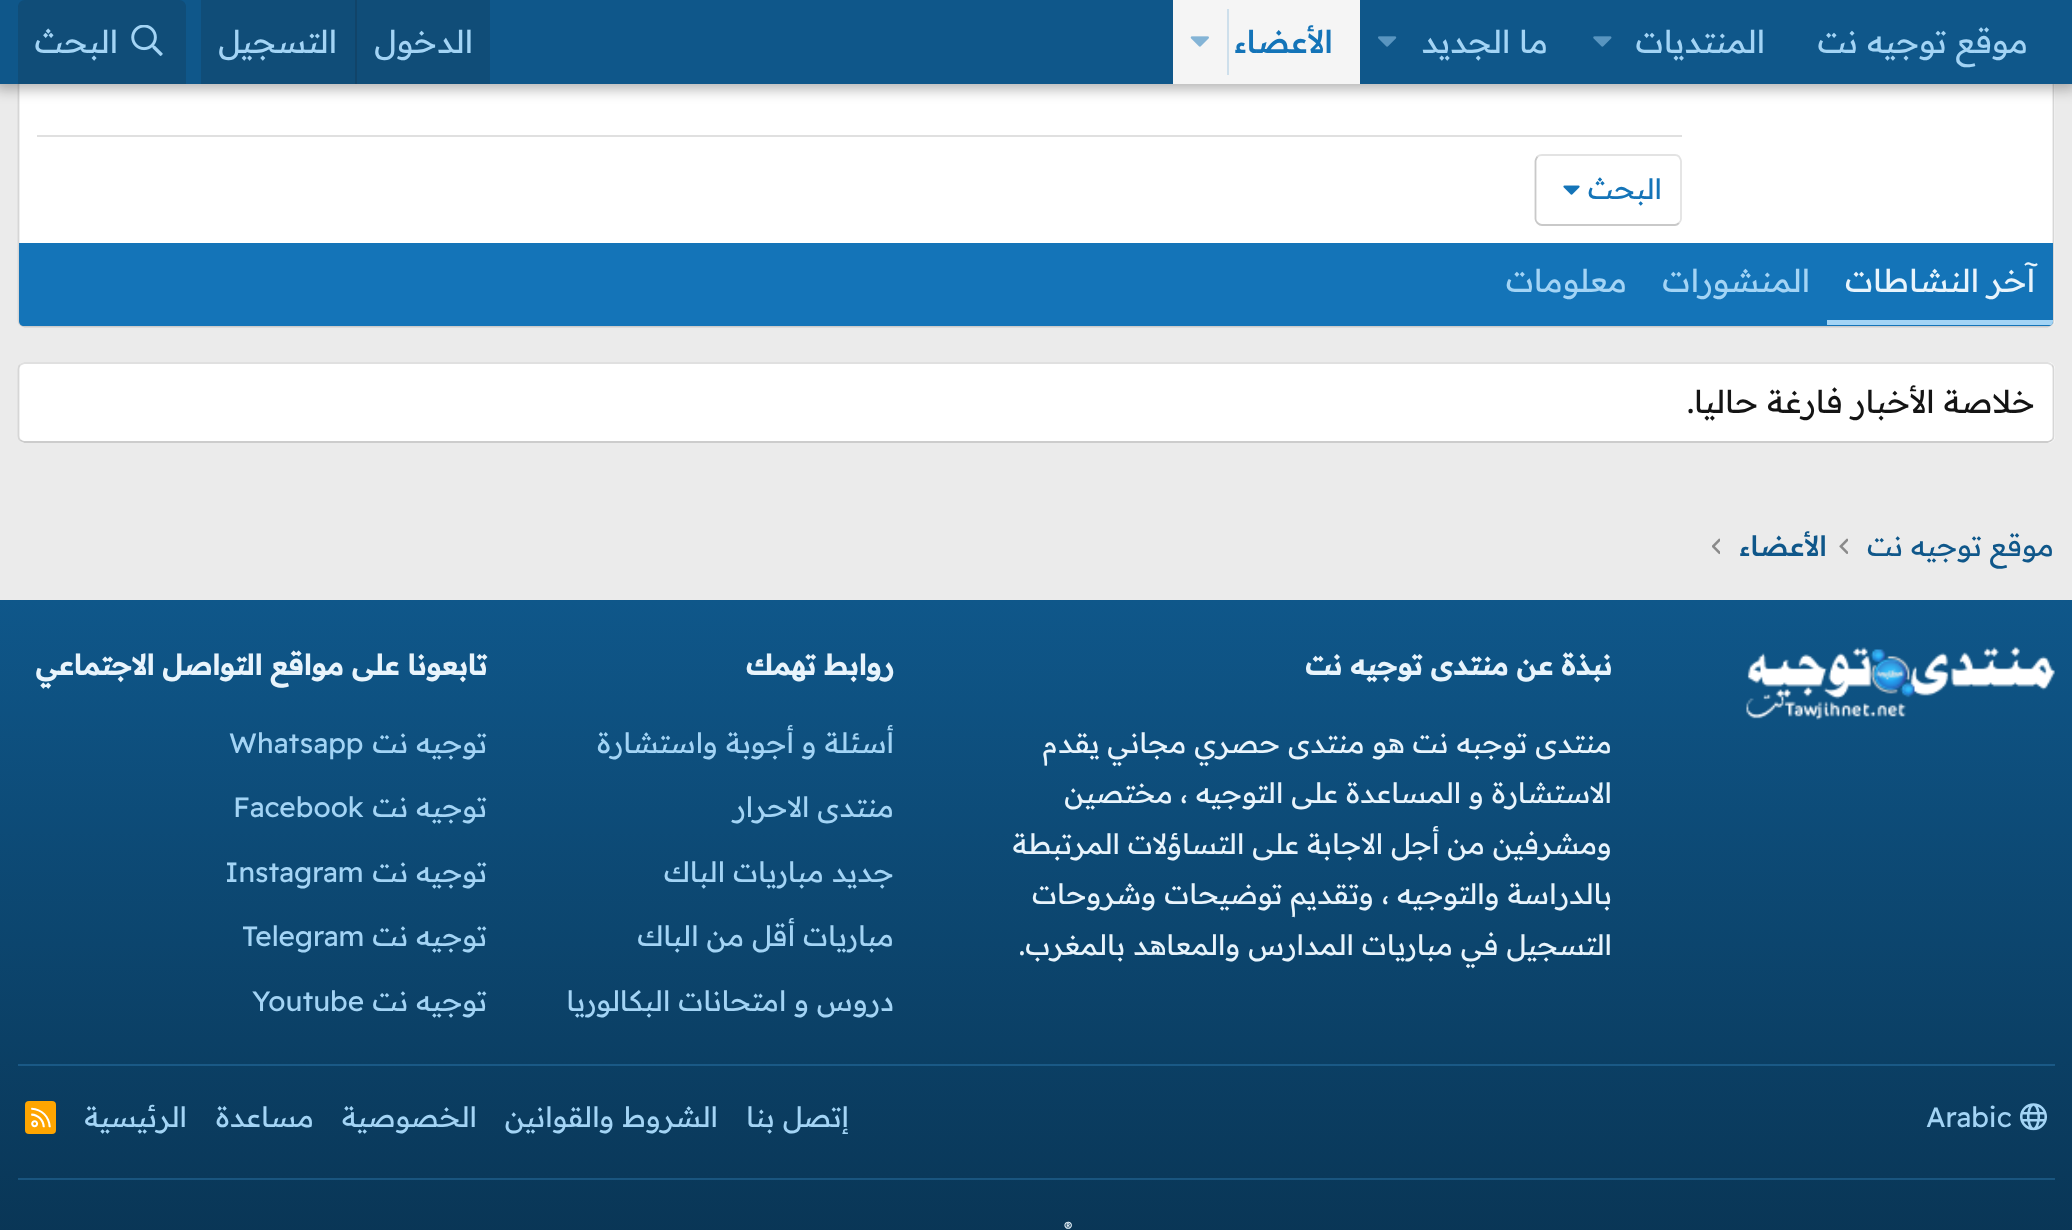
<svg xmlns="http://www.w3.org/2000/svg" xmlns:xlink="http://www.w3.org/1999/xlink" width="2072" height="1230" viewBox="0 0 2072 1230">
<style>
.cls-1{font:31.5px Readex Pro;direction:rtl;fill:#a3d4f5}
.cls-2{font:500 31.5px Readex Pro;direction:rtl;fill:#1474b8}
.cls-3{font:28px Readex Pro;direction:rtl;fill:#1474b8}
.cls-4{font:31.5px Readex Pro;direction:rtl;fill:#e8f4fc}
.cls-5{font:31.5px Readex Pro;direction:rtl;fill:#141414}
.cls-6{font:28px Readex Pro;direction:rtl;fill:#0f578a}
.cls-7{font:500 28px Readex Pro;direction:rtl;fill:#0f578a}
.cls-8{font:bold 28px Readex Pro;direction:rtl;fill:#e8f4fc}
.cls-9{font:28px Readex Pro;direction:rtl;fill:#e8f4fc}
.cls-10{font:28px Readex Pro;direction:rtl;fill:#a3d4f5}
.cls-11{font:28px Readex Pro;fill:#a3d4f5}
.cls-12{font:16px Readex Pro;fill:#e8f4fc}
</style>
<defs>
<clipPath id="clip1"><path d="M19 243H2053V321C2053 324 2051 326 2048 326H24C21 326 19 324 19 321Z"/></clipPath>
<linearGradient id="g1" gradientUnits="userSpaceOnUse" x1="1036" y1="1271" x2="1036" y2="600"><stop offset="0" stop-color="#093453"/><stop offset="1" stop-color="#0f578a"/></linearGradient>
</defs>
<rect width="100%" height="100%" fill="#ebebeb"/>
<rect fill="#ffffff" x="18" y="-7" width="2037" height="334" rx="7"/>
<path fill="none" stroke="#d6d6d6" stroke-width="1.8" d="M2052-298.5C2053-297 2053.5-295.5 2053.5-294V320C2053.5 322 2053 323.5 2052 324.5"/>
<path fill="none" stroke="#cccccc" stroke-width="1.8" d="M2052 324.5C2050.5 325.5 2049 326.5 2047.5 326.5H24.5C23 326.5 21.5 325.5 20 324.5"/>
<path fill="none" stroke="#d6d6d6" stroke-width="1.8" d="M20 324.5C19 323.5 18.5 322 18.5 320V-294C18.5-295.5 19-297 20-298.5"/>
<rect fill="#000000" fill-opacity="0.3" filter="blur(7px)" x="-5" y="-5" width="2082" height="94"/>
<rect fill="#0f578a" x="0" y="0" width="2072" height="84"/>
<image xlink:href="image0.png" x="1593" y="36" width="19" height="11"/>
<image xlink:href="image1.png" x="1378" y="36" width="19" height="11"/>
<rect fill="#f5f5f5" x="1173" y="0" width="187" height="84"/>
<rect fill="#cedfeb" x="1227" y="9" width="2" height="66"/>
<image xlink:href="image2.png" x="1190" y="36" width="19" height="11"/>
<rect fill="#104d78" x="201" y="0" width="289" height="84"/>
<rect fill="#114469" x="355" y="0" width="2" height="84"/>
<path fill="#104d78" d="M25 0H179C183 0 186 3 186 7V84H18V7C18 3 21 0 25 0Z"/>
<image xlink:href="image3.png" x="131" y="25" width="32" height="31"/>
<rect fill="#e0e0e0" x="37" y="135" width="1645" height="2"/>
<path fill="none" stroke="#e3e3e3" stroke-width="1.8" d="M1537.5 156.5C1538.5 155.5 1540 155 1542 155H1675C1676.5 155 1678 155.5 1679 156.5C1680 158 1681 159.5 1681 161V219C1681 220.5 1680 222 1679 223"/>
<path fill="none" stroke="#c9c9c9" stroke-width="1.8" d="M1679 223C1678 224 1676.5 225 1675 225H1542C1540 225 1538.5 224 1537.5 223C1536.5 222 1535.5 220.5 1535.5 219V161C1535.5 159.5 1536.5 158 1537.5 156.5"/>
<image xlink:href="image4.png" x="1563" y="185" width="17" height="10"/>
<path fill="#1474b8" d="M19 243H2053V321C2053 324 2051 326 2048 326H24C21 326 19 324 19 321Z"/>
<g clip-path="url(#clip1)">
<rect fill="#a3d4f5" x="1827" y="320" width="226" height="5"/>
</g>
<rect fill="#ffffff" x="18" y="362" width="2037" height="81" rx="7"/>
<path fill="none" stroke="#e0e0e0" stroke-width="1.8" d="M20 365C21.5 364 23 363 24.5 363H2047.5C2049 363 2050.5 364 2052 365"/>
<path fill="none" stroke="#d6d6d6" stroke-width="1.8" d="M2052 365C2053 366 2053.5 367.5 2053.5 369V436C2053.5 437.5 2053 439 2052 440"/>
<path fill="none" stroke="#cccccc" stroke-width="1.8" d="M2052 440C2050.5 441 2049 442 2047.5 442H24.5C23 442 21.5 441 20 440"/>
<path fill="none" stroke="#d6d6d6" stroke-width="1.8" d="M20 440C19 439 18.5 437.5 18.5 436V369C18.5 367.5 19 366 20 365"/>
<image xlink:href="image5.png" x="1839" y="538" width="9" height="16"/>
<image xlink:href="image6.png" x="1712" y="538" width="8" height="17"/>
<rect fill="url(#g1)" x="0" y="600" width="2072" height="630"/>
<rect fill="#1a5986" x="18" y="1064" width="2037" height="2"/>
<image xlink:href="image7.png" x="1746" y="646" width="309" height="74"/>
<image xlink:href="image8.png" x="2020" y="1103" width="27" height="28"/>
<rect fill="#ffa500" x="25" y="1101" width="31" height="33" rx="4"/>
<image xlink:href="image9.png" x="31" y="1107" width="20" height="21"/>
<rect fill="#19557f" x="18" y="1178" width="2037" height="2"/>
<text class="cls-1" x="2028" y="53">موقع توجيه نت</text>
<text class="cls-1" x="1765" y="53">المنتديات</text>
<text class="cls-1" x="1548" y="53">ما الجديد</text>
<text class="cls-2" x="1333" y="53">الأعضاء</text>
<text class="cls-1" x="473" y="53">الدخول</text>
<text class="cls-1" x="337" y="53">التسجيل</text>
<text class="cls-1" x="118" y="53">البحث</text>
<text class="cls-3" x="1662" y="199">البحث</text>
<text class="cls-4" x="2035" y="292">آخر النشاطات</text>
<text class="cls-1" x="1810" y="292">المنشورات</text>
<text class="cls-1" x="1627" y="292">معلومات</text>
<text class="cls-5" x="2035" y="413">خلاصة الأخبار فارغة حاليا.</text>
<text class="cls-6" x="2054" y="556">موقع توجيه نت</text>
<text class="cls-7" x="1827" y="556">الأعضاء</text>
<text class="cls-8" x="1612" y="675">نبذة عن منتدى توجيه نت</text>
<text class="cls-9"><tspan x="1612" y="753">منتدى توجبه نت هو منتدى حصري مجاني يقدم</tspan><tspan x="1612" y="803">الاستشارة و المساعدة على التوجيه ،</tspan></text>
<text class="cls-9" x="1173" y="803">مختصين</text>
<text class="cls-9"><tspan x="1612" y="854">ومشرفين من أجل الاجابة على التساؤلات المرتبطة</tspan><tspan x="1612" y="904">بالدراسة والتوجيه ، وتقديم توضيحات وشروحات</tspan><tspan x="1612" y="955">التسجيل في مباريات المدارس والمعاهد بالمغرب.</tspan></text>
<text class="cls-8" x="894" y="675">روابط تهمك</text>
<text class="cls-10" x="894" y="753">أسئلة و أجوبة واستشارة</text>
<text class="cls-10" x="894" y="817">منتدى الاحرار</text>
<text class="cls-10" x="894" y="882">جديد مباريات الباك</text>
<text class="cls-10" x="894" y="946">مباريات أقل من الباك</text>
<text class="cls-10" x="894" y="1011">دروس و امتحانات البكالوريا</text>
<text class="cls-8" x="487" y="675">تابعونا على مواقع التواصل الاجتماعي</text>
<text class="cls-10" x="487" y="753">توجيه نت</text>
<text class="cls-11" x="229" y="753">Whatsapp</text>
<text class="cls-10" x="487" y="817">توجيه نت</text>
<text class="cls-11" x="233" y="817">Facebook</text>
<text class="cls-10" x="487" y="882">توجيه نت</text>
<text class="cls-11" x="225" y="882">Instagram</text>
<text class="cls-10" x="487" y="946">توجيه نت</text>
<text class="cls-11" x="242" y="946">Telegram</text>
<text class="cls-10" x="487" y="1011">توجيه نت</text>
<text class="cls-11" x="252" y="1011">Youtube</text>
<text class="cls-11" x="1926" y="1127">Arabic</text>
<text class="cls-10" x="849" y="1127">إتصل بنا</text>
<text class="cls-10" x="718" y="1127">الشروط والقوانين</text>
<text class="cls-10" x="477" y="1127">الخصوصية</text>
<text class="cls-10" x="314" y="1127">مساعدة</text>
<text class="cls-10" x="187" y="1127">الرئيسية</text>
<text class="cls-12" x="1064" y="1233">®</text>
</svg>
